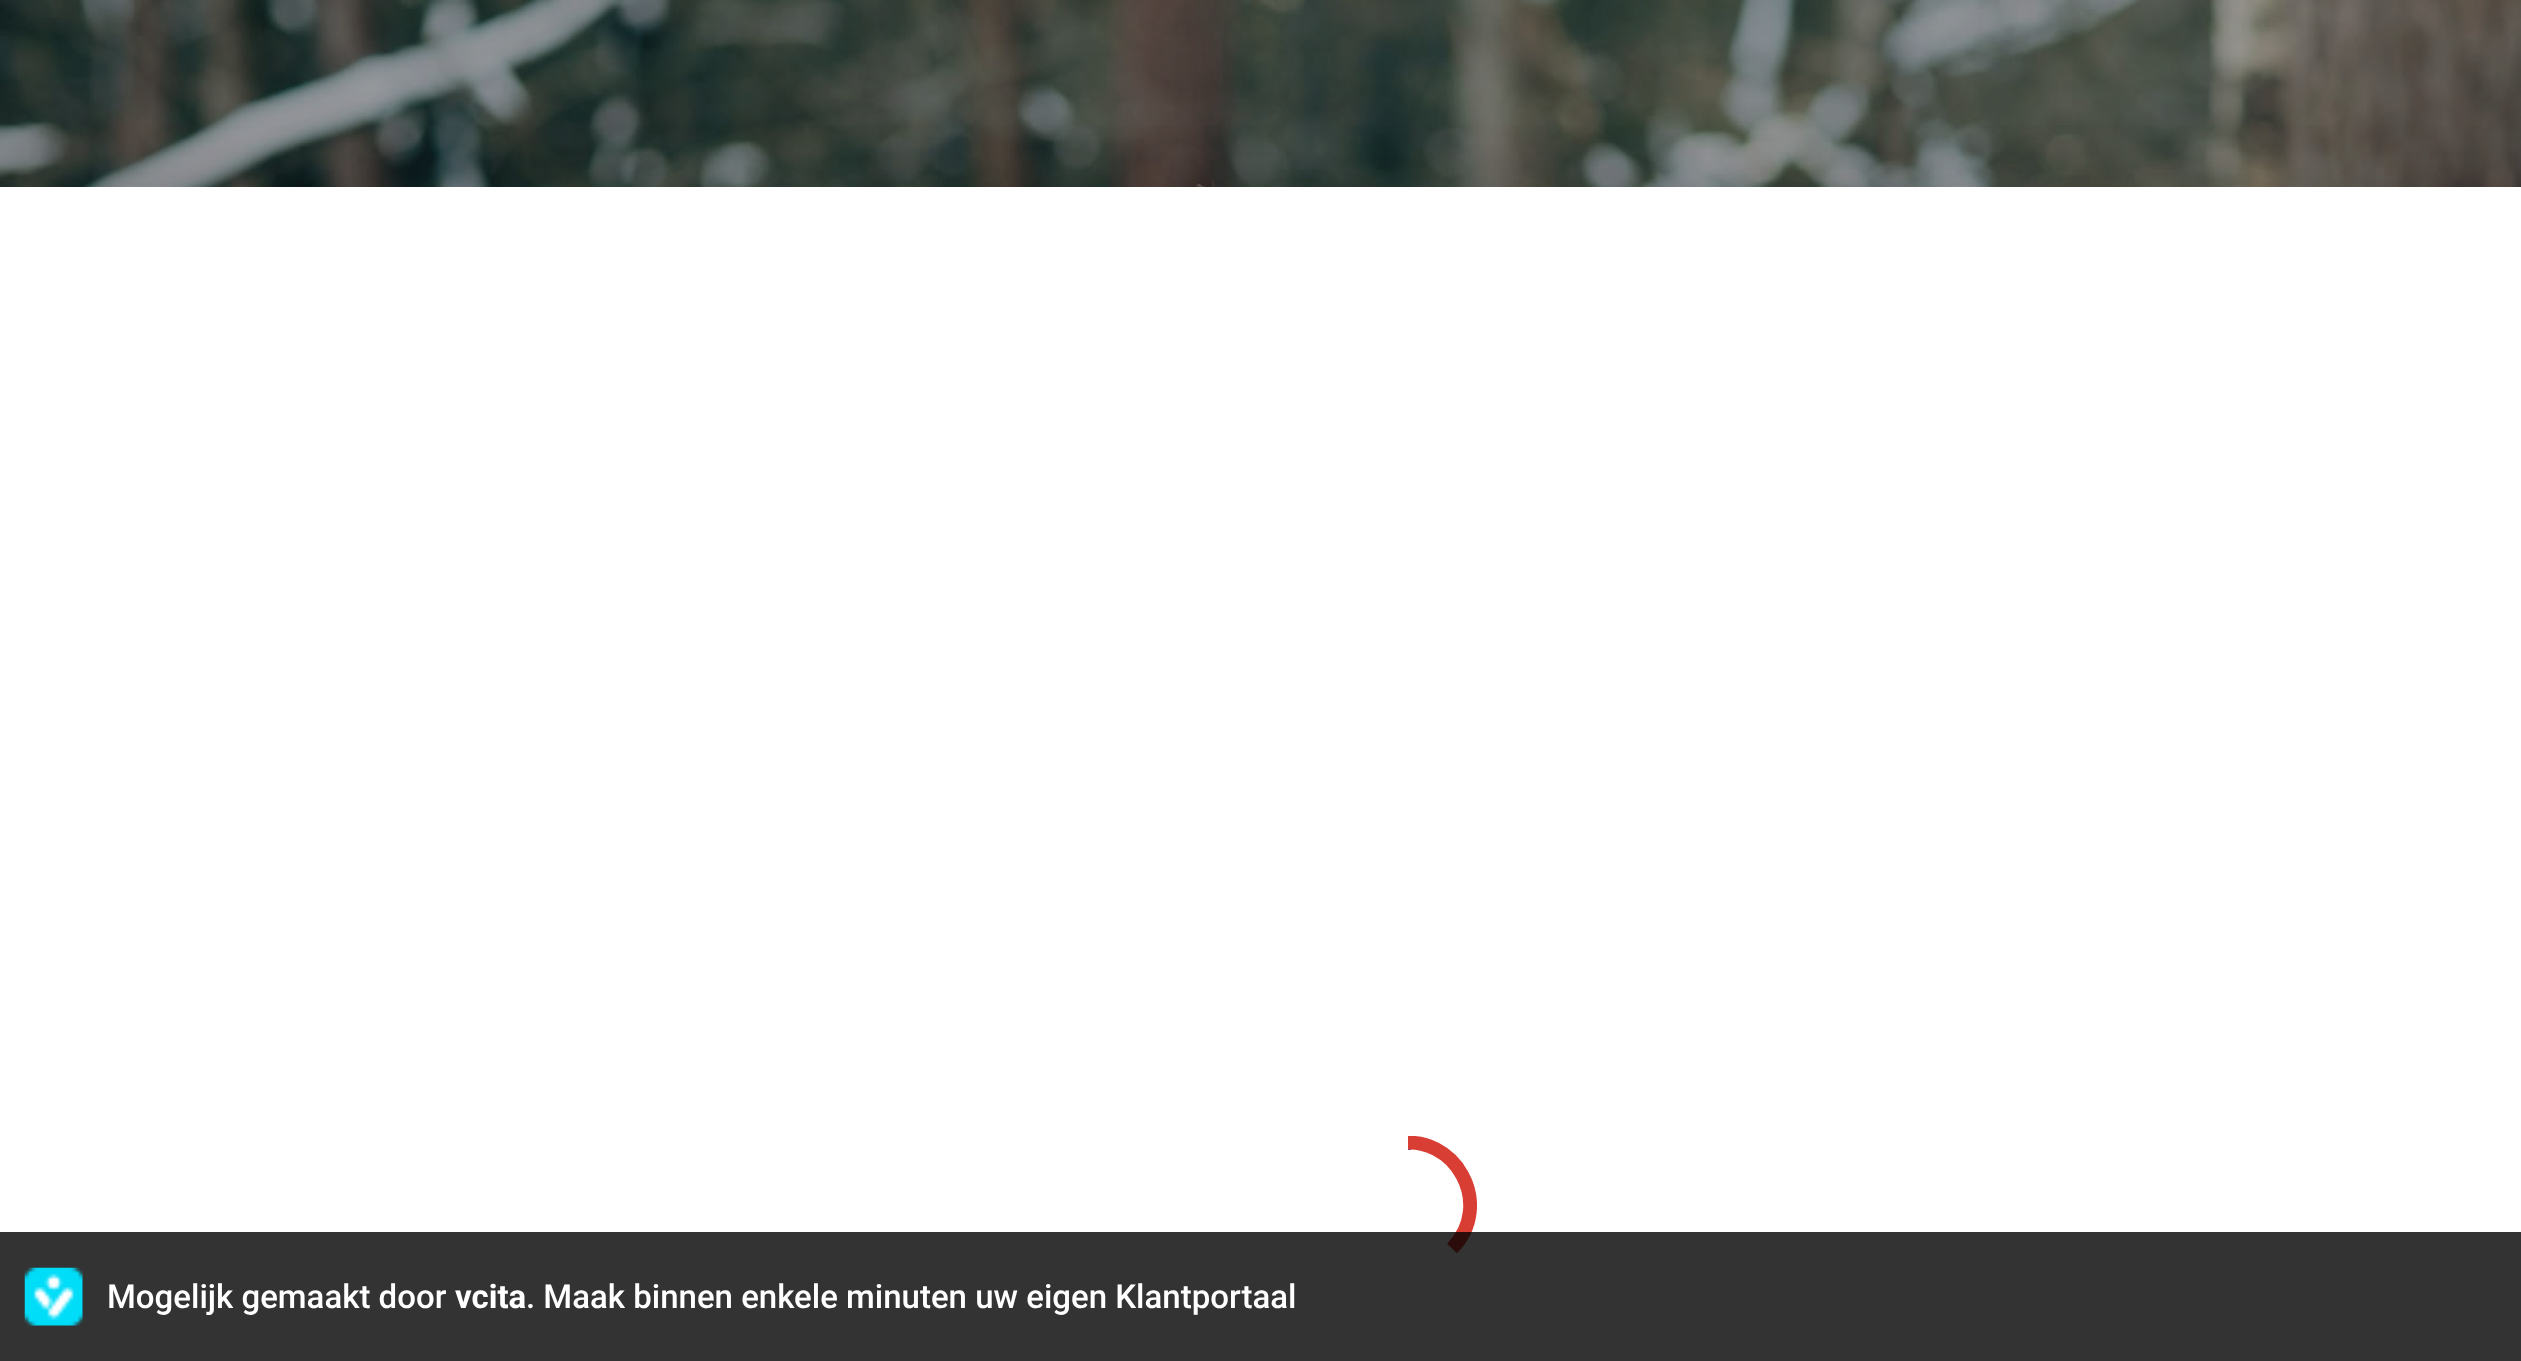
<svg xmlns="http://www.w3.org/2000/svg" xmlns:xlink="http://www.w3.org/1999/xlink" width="2521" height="1361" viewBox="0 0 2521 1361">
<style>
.cls-1{font:500 33px Roboto;fill:#ffffff}
.cls-2{font:bold 33px Roboto;fill:#ffffff}
</style>
<defs>
<clipPath id="clip1"><rect x="1408" y="1136" width="69" height="137"/></clipPath>
</defs>
<rect width="100%" height="100%" fill="#ffffff"/>
<image xlink:href="image0.png" x="0" y="0" width="2521" height="187"/>
<rect fill="#000000" fill-opacity="0.12" filter="blur(33px)" x="-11" y="190" width="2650" height="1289" rx="19"/>
<rect fill="#ffffff" x="0" y="187" width="2521" height="1174"/>
<rect fill="#3f51b5" x="1408" y="1149" width="3" height="1"/>
<g clip-path="url(#clip1)">
<path fill="none" stroke="#d93e34" stroke-width="13.8" d="M1364 1160.5C1373 1152 1384 1146 1396 1144C1455.5 1132 1495 1205 1452 1248.5"/>
</g>
<rect fill="#000000" fill-opacity="0.8" x="0" y="1232" width="2521" height="129"/>
<image xlink:href="image1.png" x="24" y="1267" width="59" height="59"/>
<text class="cls-1" x="107" y="1308">Mogelijk gemaakt door</text>
<text class="cls-2" x="455" y="1308">vcita</text>
<text class="cls-1" x="526" y="1308">. Maak binnen enkele minuten uw eigen Klantportaal</text>
</svg>
